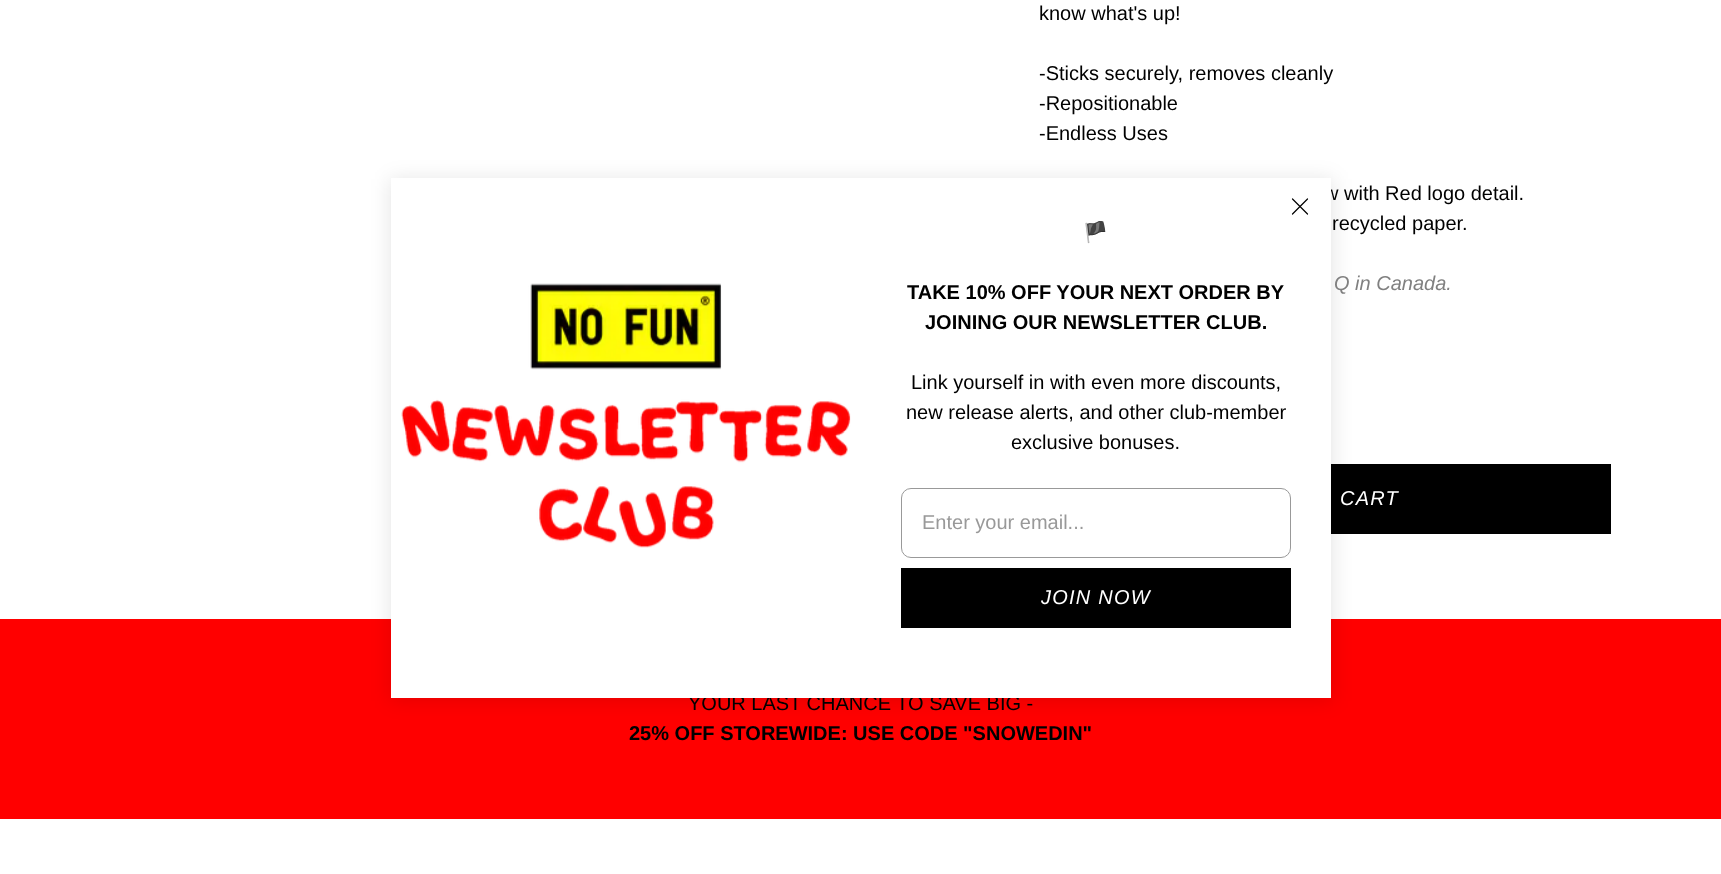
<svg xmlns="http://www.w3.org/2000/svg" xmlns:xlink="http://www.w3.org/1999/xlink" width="1721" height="874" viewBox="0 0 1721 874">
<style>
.cls-1{font:20px Liberation Sans;fill:#000000}
.cls-2{font:italic 20px Liberation Sans;fill:#808080}
.cls-3{font:italic 20px Liberation Sans;letter-spacing:1.25px;fill:#ffffff}
.cls-4{font:bold 20px Liberation Sans;fill:#000000}
.cls-5{font:bold 20px Noto Color Emoji;fill:#000000}
.cls-6{font:20px Liberation Sans;fill:#999999}
</style>
<rect width="100%" height="100%" fill="#ffffff"/>
<rect fill="#000000" x="1331" y="464" width="280" height="70"/>
<rect fill="#ff0000" x="0" y="619" width="1721" height="200"/>
<rect fill="#000000" fill-opacity="0.1" filter="blur(10px)" x="390" y="179" width="943" height="522"/>
<text class="cls-1" x="1039" y="20">know what's up!</text>
<text class="cls-1"><tspan x="1039" y="80">-Sticks securely, removes cleanly</tspan><tspan x="1039" y="110">-Repositionable</tspan><tspan x="1039" y="140">-Endless Uses</tspan></text>
<text class="cls-1" x="1324" y="200">w with Red logo detail.</text>
<text class="cls-1" x="1332" y="230">recycled paper.</text>
<text class="cls-2" x="1334" y="290">Q in Canada.</text>
<text class="cls-3" x="1340" y="505">CART</text>
<text class="cls-1" x="688" y="710">YOUR LAST CHANCE TO SAVE BIG -</text>
<text class="cls-4" x="629" y="740">25% OFF STOREWIDE: USE CODE "SNOWEDIN"</text>
<rect fill="#ffffff" x="391" y="178" width="940" height="520"/>
<path fill="none" stroke="#000000" stroke-width="1.2" stroke-linecap="round" stroke-linejoin="round" d="M1292.5 214L1307.5 199M1307.5 214L1292.5 199"/>
<image xlink:href="image0.png" x="401" y="283" width="450" height="265"/>
<text class="cls-5" x="1083" y="239">🏴</text>
<text class="cls-4" x="907" y="299">TAKE 10% OFF YOUR NEXT ORDER BY</text>
<text class="cls-4" x="925" y="329">JOINING OUR NEWSLETTER CLUB.</text>
<text class="cls-1" x="911" y="389">Link yourself in with even more discounts,</text>
<text class="cls-1" x="906" y="419">new release alerts, and other club-member</text>
<text class="cls-1" x="1011" y="449">exclusive bonuses.</text>
<rect fill="none" stroke="#999999" x="901.5" y="488.5" width="389" height="69" rx="9.5"/>
<text class="cls-6" x="922" y="529">Enter your email...</text>
<rect fill="#000000" x="901" y="568" width="390" height="60"/>
<text class="cls-3" x="1041" y="604">JOIN NOW</text>
</svg>
